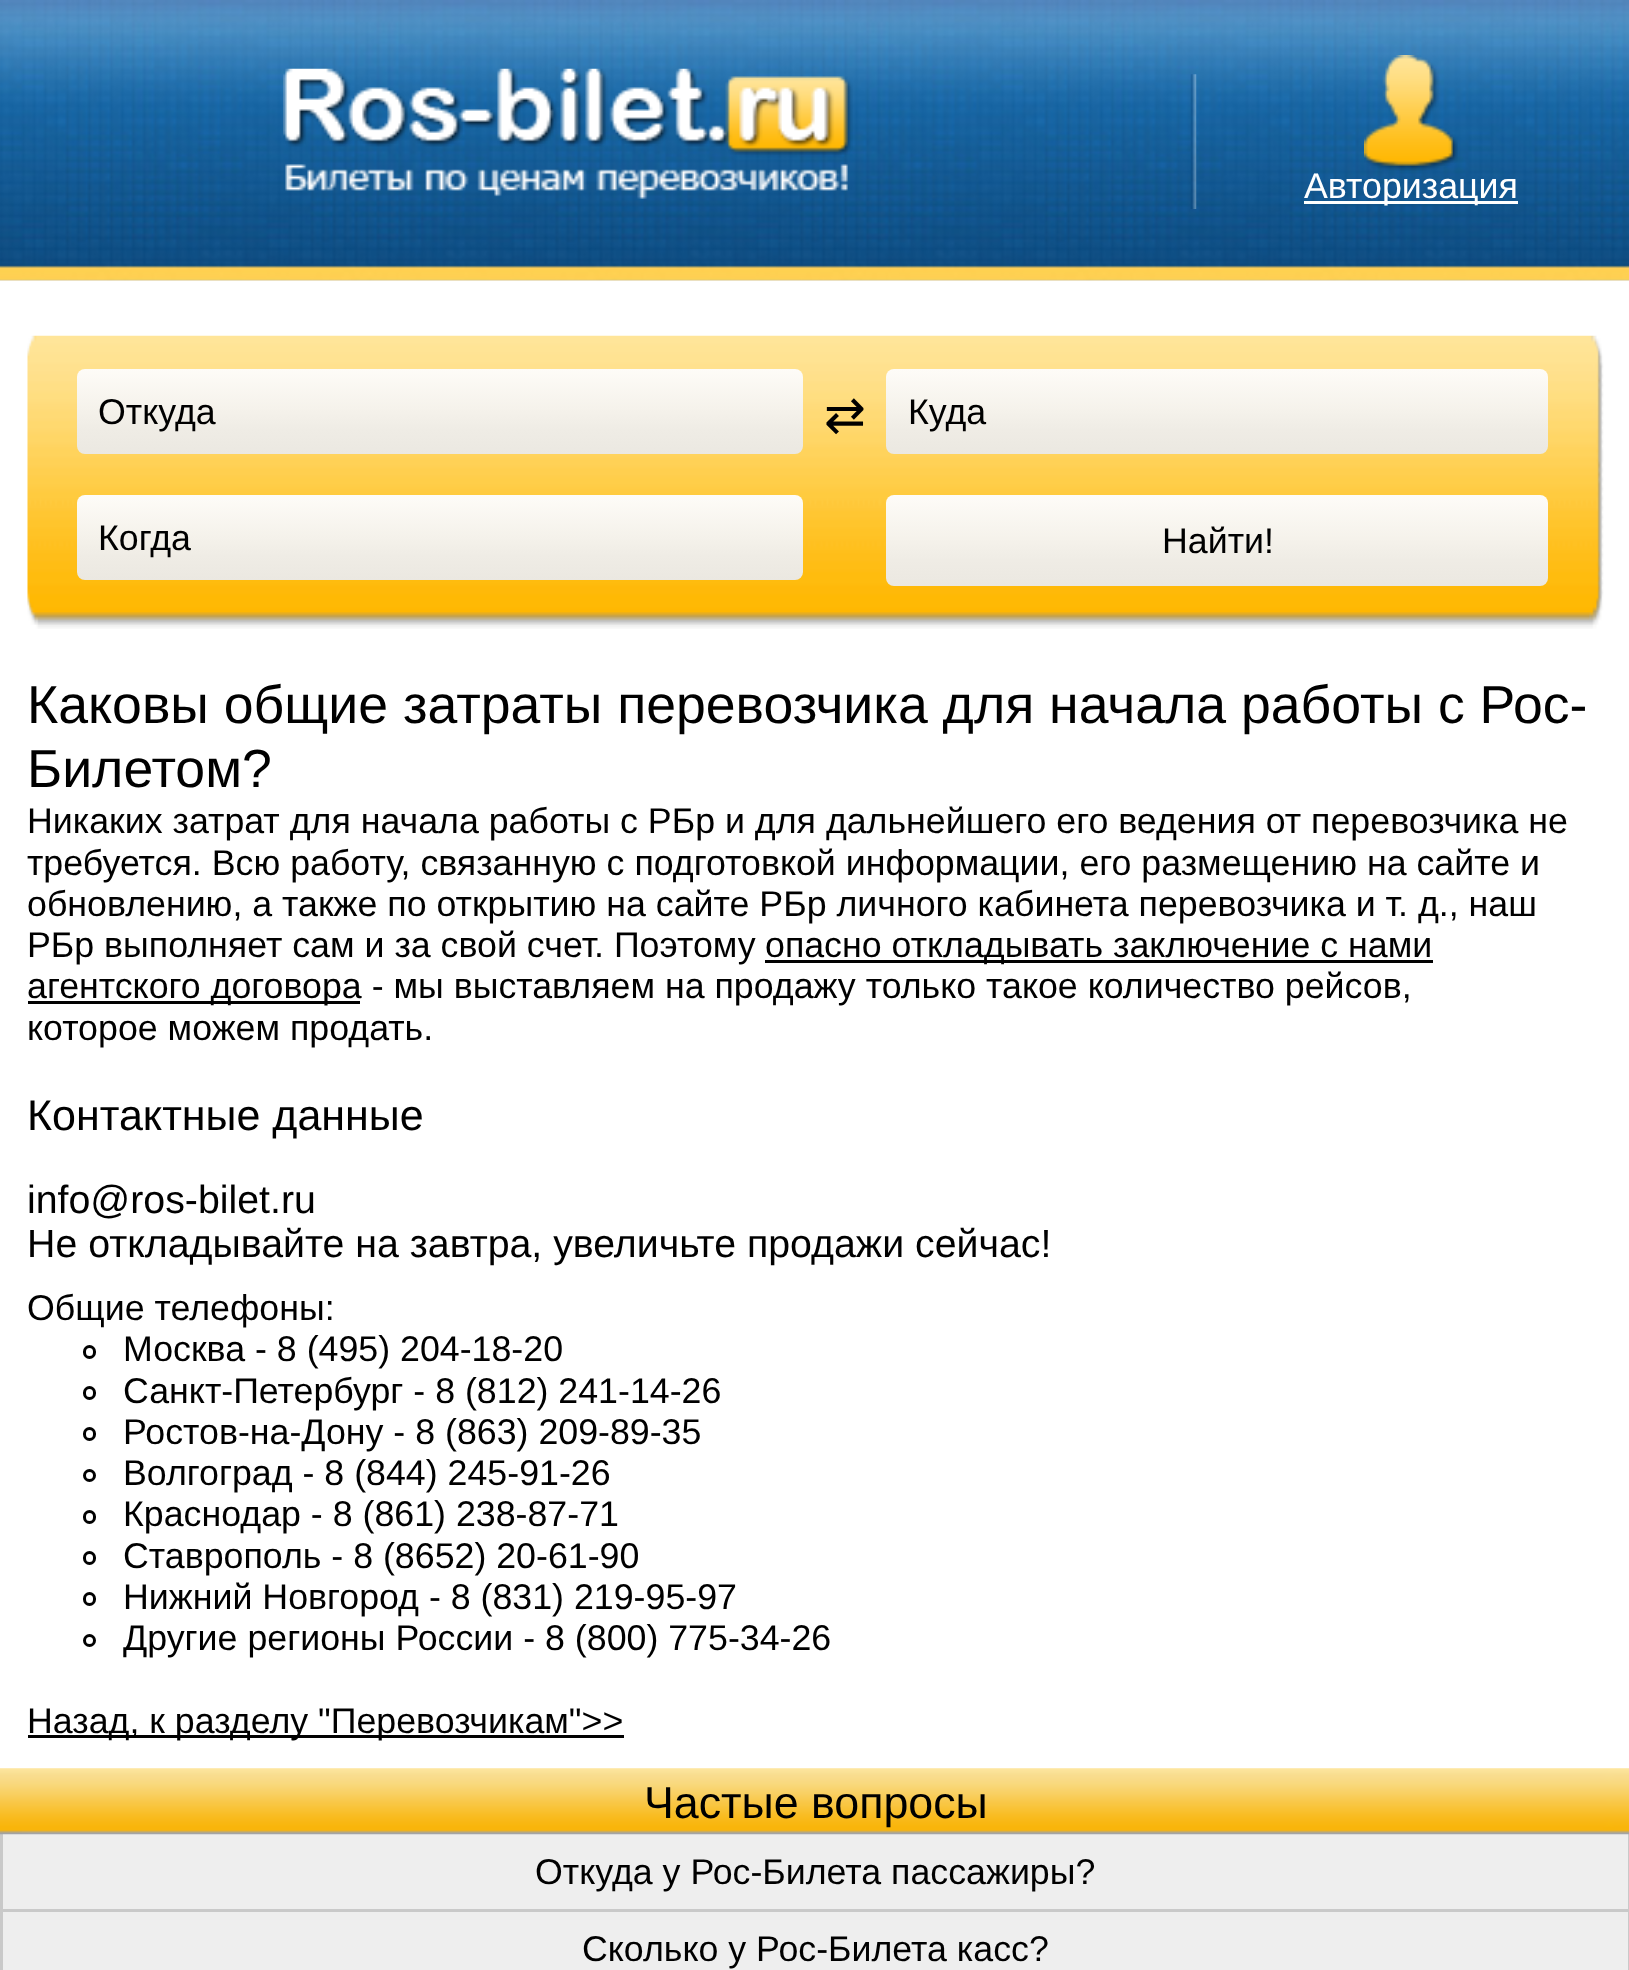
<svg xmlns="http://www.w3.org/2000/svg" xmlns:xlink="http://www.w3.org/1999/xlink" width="1629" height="1970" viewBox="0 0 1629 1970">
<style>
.cls-1{font:35.75px Liberation Sans;fill:#ffffff}
.cls-2{font:35.75px Liberation Sans;fill:#000000}
.cls-3{font:50px DejaVu Sans;fill:#000000}
.cls-4{font:53.6px Liberation Sans;fill:#000000}
.cls-5{font:43px Liberation Sans;fill:#000000}
.cls-6{font:39.3px Liberation Sans;fill:#000000}
.cls-7{font:44.75px Liberation Sans;fill:#000000}
</style>
<defs>
<linearGradient id="g1" gradientUnits="userSpaceOnUse" x1="440" y1="368" x2="440" y2="454"><stop offset="0" stop-color="#fefcf8"/><stop offset="0.48" stop-color="#f5f2eb"/><stop offset="0.72" stop-color="#efece5"/><stop offset="1" stop-color="#ebe8e1"/></linearGradient>
<linearGradient id="g2" gradientUnits="userSpaceOnUse" x1="1217" y1="369" x2="1217" y2="454"><stop offset="0" stop-color="#fefcf8"/><stop offset="0.48" stop-color="#f5f2eb"/><stop offset="0.72" stop-color="#efece5"/><stop offset="1" stop-color="#ebe8e1"/></linearGradient>
<linearGradient id="g3" gradientUnits="userSpaceOnUse" x1="440" y1="495" x2="440" y2="580"><stop offset="0" stop-color="#fefcf8"/><stop offset="0.48" stop-color="#f5f2eb"/><stop offset="0.72" stop-color="#efece5"/><stop offset="1" stop-color="#ebe8e1"/></linearGradient>
<linearGradient id="g4" gradientUnits="userSpaceOnUse" x1="1217" y1="495" x2="1217" y2="586"><stop offset="0" stop-color="#fefcf8"/><stop offset="0.48" stop-color="#f5f2eb"/><stop offset="0.72" stop-color="#efece5"/><stop offset="1" stop-color="#ebe8e1"/></linearGradient>
</defs>
<rect width="100%" height="100%" fill="#ffffff"/>
<image xlink:href="image0.png" x="0" y="0" width="1629" height="281"/>
<image xlink:href="image1.png" x="283" y="68" width="570" height="131"/>
<image xlink:href="image2.png" x="1190" y="74" width="7" height="135"/>
<image xlink:href="image3.png" x="1364" y="55" width="94" height="116"/>
<rect fill="#ffffff" x="1304" y="201" width="214" height="3"/>
<image xlink:href="image4.png" x="27" y="335" width="1577" height="294"/>
<rect fill="url(#g1)" x="77" y="369" width="726" height="85" rx="8"/>
<rect fill="url(#g2)" x="886" y="369" width="662" height="85" rx="8"/>
<rect fill="url(#g3)" x="77" y="495" width="726" height="85" rx="8"/>
<rect fill="url(#g4)" x="886" y="495" width="662" height="91" rx="8"/>
<rect fill="#010101" x="765" y="960" width="668" height="3"/>
<rect fill="#010101" x="28" y="1001" width="332" height="3"/>
<rect fill="none" stroke="#010101" stroke-width="3" x="84.5" y="1346.5" width="10" height="11" rx="5"/>
<rect fill="none" stroke="#010101" stroke-width="3" x="84.5" y="1387.5" width="10" height="11" rx="5"/>
<rect fill="none" stroke="#010101" stroke-width="3" x="84.5" y="1428.5" width="10" height="11" rx="5"/>
<circle fill="none" stroke="#010101" stroke-width="3" cx="89.5" cy="1475.5" r="5"/>
<rect fill="none" stroke="#010101" stroke-width="3" x="84.5" y="1511.5" width="10" height="11" rx="5"/>
<rect fill="none" stroke="#010101" stroke-width="3" x="84.5" y="1552.5" width="10" height="11" rx="5"/>
<rect fill="none" stroke="#010101" stroke-width="3" x="84.5" y="1593.5" width="10" height="11" rx="5"/>
<circle fill="none" stroke="#010101" stroke-width="3" cx="89.5" cy="1640.5" r="5"/>
<rect fill="#010101" x="28" y="1735" width="596" height="3"/>
<rect fill="#eeeeee" x="3" y="1834" width="1625" height="136"/>
<rect fill="#c9c9c9" x="1628" y="1834" width="1" height="136"/>
<rect fill="#c9c9c9" x="0" y="1834" width="3" height="136"/>
<image xlink:href="image5.png" x="0" y="1768" width="1629" height="67"/>
<rect fill="#c9c9c9" x="3" y="1909" width="1625" height="3"/>
<text class="cls-1" x="1304" y="198">Авторизация</text>
<text class="cls-2" x="98" y="424">Откуда</text>
<text class="cls-3" x="824" y="432">⇄</text>
<text class="cls-2" x="908" y="424">Куда</text>
<text class="cls-2" x="98" y="550">Когда</text>
<text class="cls-2" x="1162" y="553">Найти!</text>
<text class="cls-4"><tspan x="27" y="723">Каковы общие затраты перевозчика для начала работы с Рос-</tspan><tspan x="27" y="787">Билетом?</tspan></text>
<text class="cls-2"><tspan x="27" y="833">Никаких затрат для начала работы с РБр и для дальнейшего его ведения от перевозчика не</tspan><tspan x="27" y="875">требуется. Всю работу, связанную с подготовкой информации, его размещению на сайте и</tspan><tspan x="27" y="916">обновлению, а также по открытию на сайте РБр личного кабинета перевозчика и т. д., наш</tspan><tspan x="27" y="957">РБр выполняет сам и за свой счет. Поэтому</tspan></text>
<text class="cls-2" x="765" y="957">опасно откладывать заключение с нами</text>
<text class="cls-2"><tspan x="27" y="998">агентского договора - мы выставляем на продажу только такое количество рейсов,</tspan><tspan x="27" y="1040">которое можем продать.</tspan></text>
<text class="cls-5" x="27" y="1130">Контактные данные</text>
<text class="cls-6"><tspan x="27" y="1213">info@ros-bilet.ru</tspan><tspan x="27" y="1257">Не откладывайте на завтра, увеличьте продажи сейчас!</tspan></text>
<text class="cls-2" x="27" y="1320">Общие телефоны:</text>
<text class="cls-2"><tspan x="123" y="1361">Москва - 8 (495) 204-18-20</tspan><tspan x="123" y="1403">Санкт-Петербург - 8 (812) 241-14-26</tspan><tspan x="123" y="1444">Ростов-на-Дону - 8 (863) 209-89-35</tspan><tspan x="123" y="1485">Волгоград - 8 (844) 245-91-26</tspan><tspan x="123" y="1526">Краснодар - 8 (861) 238-87-71</tspan><tspan x="123" y="1568">Ставрополь - 8 (8652) 20-61-90</tspan><tspan x="123" y="1609">Нижний Новгород - 8 (831) 219-95-97</tspan><tspan x="123" y="1650">Другие регионы России - 8 (800) 775-34-26</tspan></text>
<text class="cls-2" x="27" y="1733">Назад, к разделу "Перевозчикам"&gt;&gt;</text>
<text class="cls-7" x="644" y="1818">Частые вопросы</text>
<text class="cls-2" x="535" y="1884">Откуда у Рос-Билета пассажиры?</text>
<text class="cls-2" x="582" y="1961">Сколько у Рос-Билета касс?</text>
</svg>
